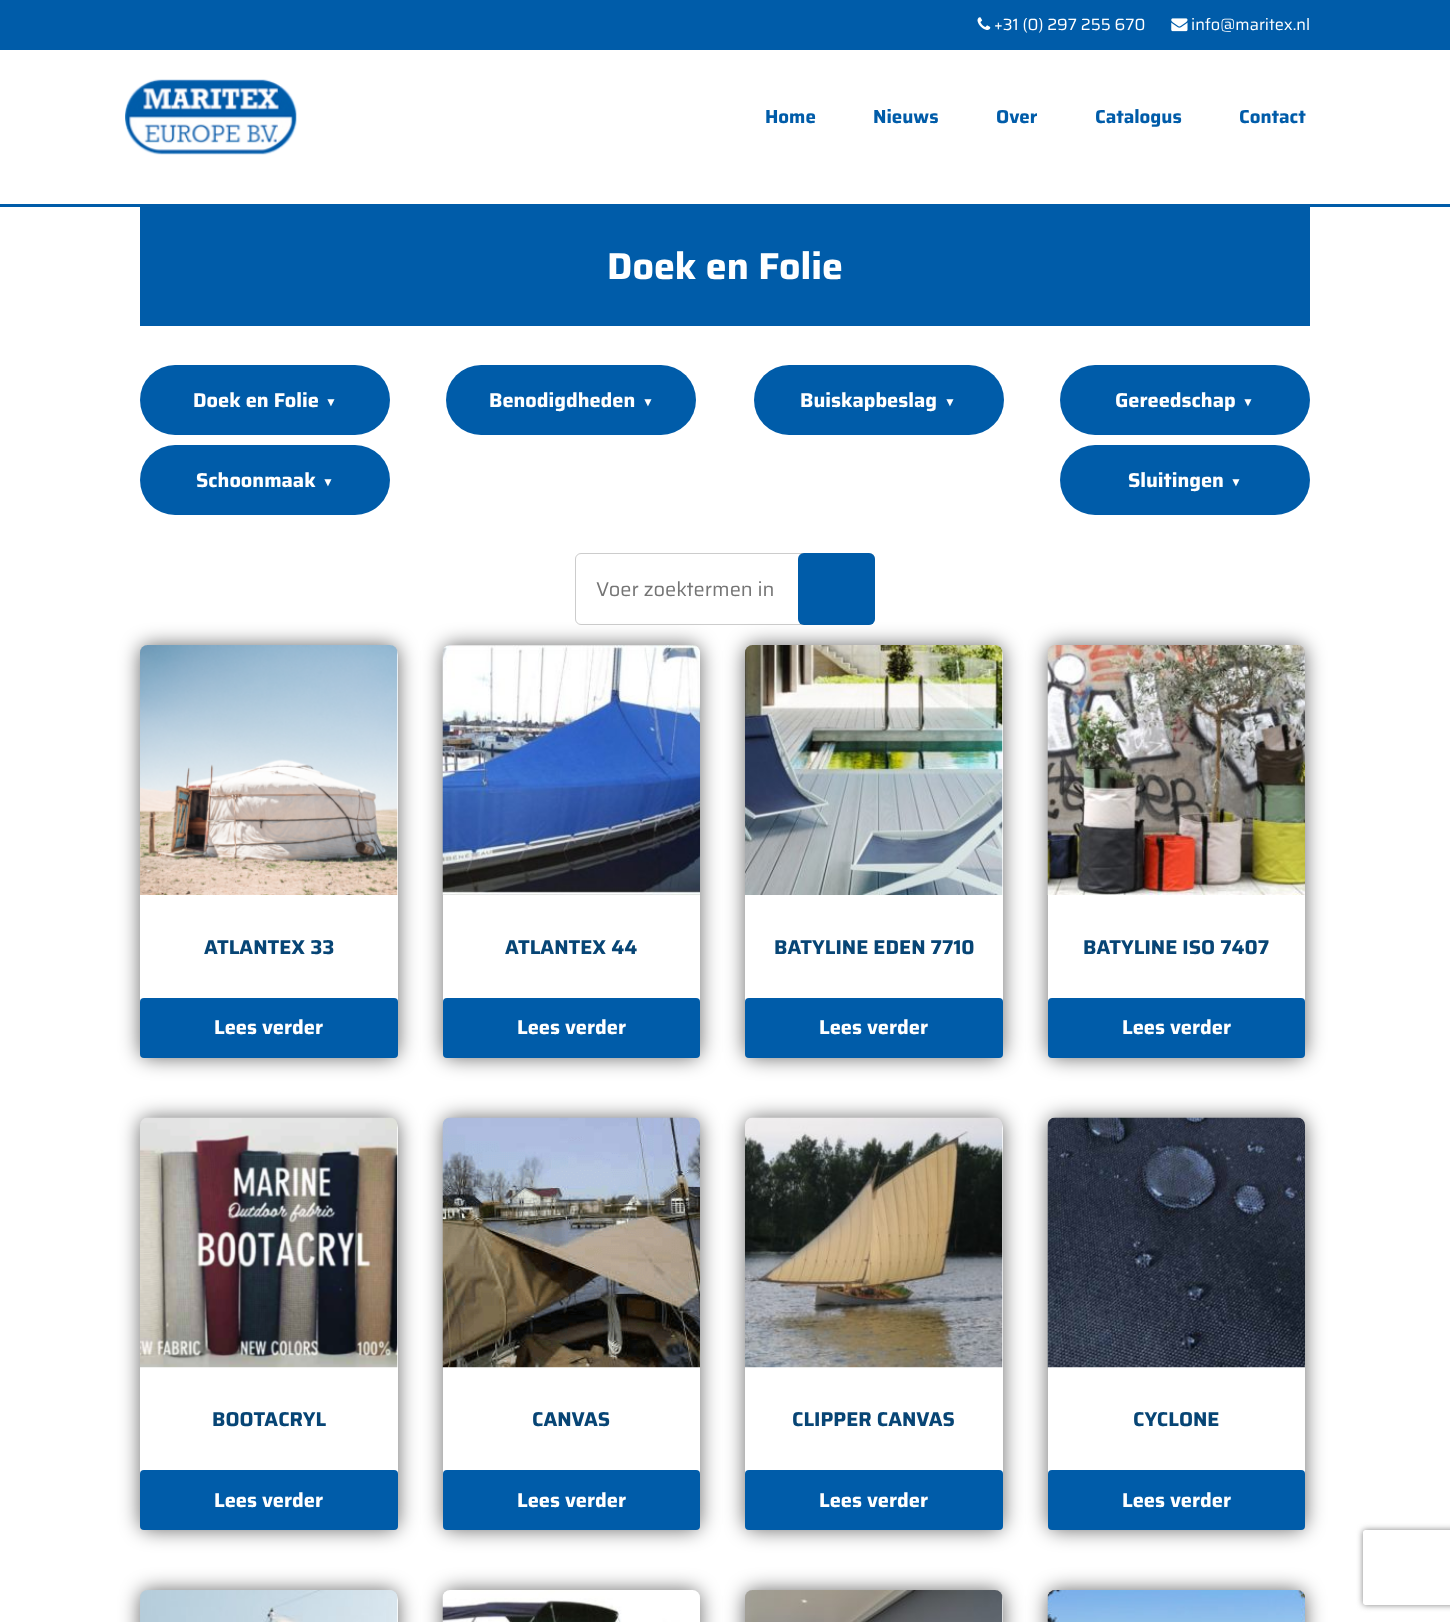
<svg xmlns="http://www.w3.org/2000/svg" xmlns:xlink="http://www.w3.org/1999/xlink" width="1450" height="1622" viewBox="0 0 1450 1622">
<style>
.cls-1{font:16.25px Saira;fill:#ffffff}
.cls-2{font:bold 18.75px Saira;fill:#005ca9}
.cls-3{font:bold 37.5px Saira;fill:#ffffff}
.cls-4{font:bold 20px Saira;fill:#ffffff}
.cls-5{font:bold 12px Liberation Sans;fill:#ffffff}
.cls-6{font:20px Saira;fill:#757575}
.cls-7{font:bold 20px Saira;fill:#074575}
</style>
<defs>
<clipPath id="clip1"><path d="M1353 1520H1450V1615H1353ZM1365.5 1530H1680.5C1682 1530 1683 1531 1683 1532.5V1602.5C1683 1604 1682 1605 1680.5 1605H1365.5C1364 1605 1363 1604 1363 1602.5V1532.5C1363 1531 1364 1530 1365.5 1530Z" clip-rule="evenodd"/></clipPath>
</defs>
<rect width="100%" height="100%" fill="#ffffff"/>
<rect fill="#005ca9" x="0" y="0" width="1450" height="50"/>
<image xlink:href="image0.png" x="977" y="17" width="14" height="13"/>
<image xlink:href="image1.png" x="1171" y="18" width="17" height="14"/>
<rect fill="#005ca9" x="0" y="204" width="1450" height="3"/>
<image xlink:href="image2.png" x="125" y="79" width="172" height="76"/>
<rect fill="#005ca9" x="140" y="207" width="1170" height="119"/>
<rect fill="#005ca9" x="140" y="365" width="250" height="70" rx="35"/>
<rect fill="#005ca9" x="446" y="365" width="250" height="70" rx="35"/>
<rect fill="#005ca9" x="754" y="365" width="250" height="70" rx="35"/>
<rect fill="#005ca9" x="1060" y="365" width="250" height="70" rx="35"/>
<rect fill="#005ca9" x="140" y="445" width="250" height="70" rx="35"/>
<rect fill="#005ca9" x="1060" y="445" width="250" height="70" rx="35"/>
<rect fill="none" stroke="#cccccc" x="575.5" y="553.5" width="299" height="71" rx="5.5"/>
<rect fill="#005ca9" x="798" y="553" width="77" height="72" rx="6"/>
<rect fill="#000000" fill-opacity="0.59" filter="blur(10px)" x="140" y="645" width="258" height="413" rx="10"/>
<rect fill="#ffffff" x="140" y="645" width="258" height="413" rx="10"/>
<image xlink:href="image3.png" x="140" y="645" width="258" height="250"/>
<rect fill="#005ca9" x="140" y="998" width="258" height="60" rx="4"/>
<rect fill="#000000" fill-opacity="0.59" filter="blur(10px)" x="443" y="645" width="257" height="413" rx="10"/>
<rect fill="#ffffff" x="443" y="645" width="257" height="413" rx="10"/>
<image xlink:href="image4.png" x="442" y="645" width="258" height="250"/>
<rect fill="#005ca9" x="443" y="998" width="257" height="60" rx="4"/>
<rect fill="#000000" fill-opacity="0.59" filter="blur(10px)" x="745" y="645" width="258" height="413" rx="10"/>
<rect fill="#ffffff" x="745" y="645" width="258" height="413" rx="10"/>
<image xlink:href="image5.png" x="745" y="645" width="258" height="250"/>
<rect fill="#005ca9" x="745" y="998" width="258" height="60" rx="4"/>
<rect fill="#000000" fill-opacity="0.59" filter="blur(10px)" x="1048" y="645" width="257" height="413" rx="10"/>
<rect fill="#ffffff" x="1048" y="645" width="257" height="413" rx="10"/>
<image xlink:href="image6.png" x="1047" y="645" width="258" height="250"/>
<rect fill="#005ca9" x="1048" y="998" width="257" height="60" rx="4"/>
<rect fill="#000000" fill-opacity="0.59" filter="blur(10px)" x="140" y="1118" width="258" height="412" rx="10"/>
<rect fill="#ffffff" x="140" y="1118" width="258" height="412" rx="10"/>
<image xlink:href="image7.png" x="140" y="1117" width="258" height="251"/>
<rect fill="#005ca9" x="140" y="1470" width="258" height="60" rx="4"/>
<rect fill="#000000" fill-opacity="0.59" filter="blur(10px)" x="443" y="1118" width="257" height="412" rx="10"/>
<rect fill="#ffffff" x="443" y="1118" width="257" height="412" rx="10"/>
<image xlink:href="image8.png" x="442" y="1117" width="258" height="251"/>
<rect fill="#005ca9" x="443" y="1470" width="257" height="60" rx="4"/>
<rect fill="#000000" fill-opacity="0.59" filter="blur(10px)" x="745" y="1118" width="258" height="412" rx="10"/>
<rect fill="#ffffff" x="745" y="1118" width="258" height="412" rx="10"/>
<image xlink:href="image9.png" x="745" y="1117" width="258" height="251"/>
<rect fill="#005ca9" x="745" y="1470" width="258" height="60" rx="4"/>
<rect fill="#000000" fill-opacity="0.59" filter="blur(10px)" x="1048" y="1118" width="257" height="412" rx="10"/>
<rect fill="#ffffff" x="1048" y="1118" width="257" height="412" rx="10"/>
<image xlink:href="image10.png" x="1047" y="1117" width="258" height="251"/>
<rect fill="#005ca9" x="1048" y="1470" width="257" height="60" rx="4"/>
<rect fill="#000000" fill-opacity="0.59" filter="blur(10px)" x="140" y="1590" width="258" height="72" rx="10"/>
<rect fill="#ffffff" x="140" y="1590" width="258" height="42" rx="10"/>
<image xlink:href="image11.png" x="140" y="1590" width="258" height="32"/>
<rect fill="#000000" fill-opacity="0.59" filter="blur(10px)" x="443" y="1590" width="257" height="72" rx="10"/>
<image xlink:href="image12.png" x="442" y="1590" width="258" height="32"/>
<rect fill="#000000" fill-opacity="0.59" filter="blur(10px)" x="745" y="1590" width="258" height="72" rx="10"/>
<rect fill="#ffffff" x="745" y="1590" width="258" height="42" rx="10"/>
<image xlink:href="image13.png" x="745" y="1590" width="258" height="32"/>
<rect fill="#000000" fill-opacity="0.59" filter="blur(10px)" x="1048" y="1590" width="257" height="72" rx="10"/>
<image xlink:href="image14.png" x="1047" y="1590" width="258" height="32"/>
<g clip-path="url(#clip1)">
<rect fill="#808080" filter="blur(3px)" x="1363" y="1530" width="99" height="75" rx="2.5"/>
</g>
<text class="cls-1" x="994" y="30">+31 (0) 297 255 670</text>
<text class="cls-1" x="1191" y="30">info@maritex.nl</text>
<text class="cls-2" x="765" y="123">Home</text>
<text class="cls-2" x="873" y="123">Nieuws</text>
<text class="cls-2" x="996" y="123">Over</text>
<text class="cls-2" x="1095" y="123">Catalogus</text>
<text class="cls-2" x="1239" y="123">Contact</text>
<text class="cls-3" x="607" y="279">Doek en Folie</text>
<text class="cls-4" x="193" y="407">Doek en Folie</text>
<text class="cls-5" x="325" y="406">▼</text>
<text class="cls-4" x="489" y="407">Benodigdheden</text>
<text class="cls-5" x="642" y="406">▼</text>
<text class="cls-4" x="800" y="407">Buiskapbeslag</text>
<text class="cls-5" x="944" y="406">▼</text>
<text class="cls-4" x="1115" y="407">Gereedschap</text>
<text class="cls-5" x="1242" y="406">▼</text>
<text class="cls-4" x="196" y="487">Schoonmaak</text>
<text class="cls-5" x="322" y="486">▼</text>
<text class="cls-4" x="1128" y="487">Sluitingen</text>
<text class="cls-5" x="1230" y="486">▼</text>
<text class="cls-6" x="596" y="596">Voer zoektermen in</text>
<text class="cls-7" x="204" y="954">ATLANTEX 33</text>
<text class="cls-4" x="214" y="1034">Lees verder</text>
<text class="cls-7" x="505" y="954">ATLANTEX 44</text>
<text class="cls-4" x="517" y="1034">Lees verder</text>
<text class="cls-7" x="774" y="954">BATYLINE EDEN 7710</text>
<text class="cls-4" x="819" y="1034">Lees verder</text>
<text class="cls-7" x="1083" y="954">BATYLINE ISO 7407</text>
<text class="cls-4" x="1122" y="1034">Lees verder</text>
<text class="cls-7" x="212" y="1426">BOOTACRYL</text>
<text class="cls-4" x="214" y="1507">Lees verder</text>
<text class="cls-7" x="532" y="1426">CANVAS</text>
<text class="cls-4" x="517" y="1507">Lees verder</text>
<text class="cls-7" x="792" y="1426">CLIPPER CANVAS</text>
<text class="cls-4" x="819" y="1507">Lees verder</text>
<text class="cls-7" x="1133" y="1426">CYCLONE</text>
<text class="cls-4" x="1122" y="1507">Lees verder</text>
</svg>
